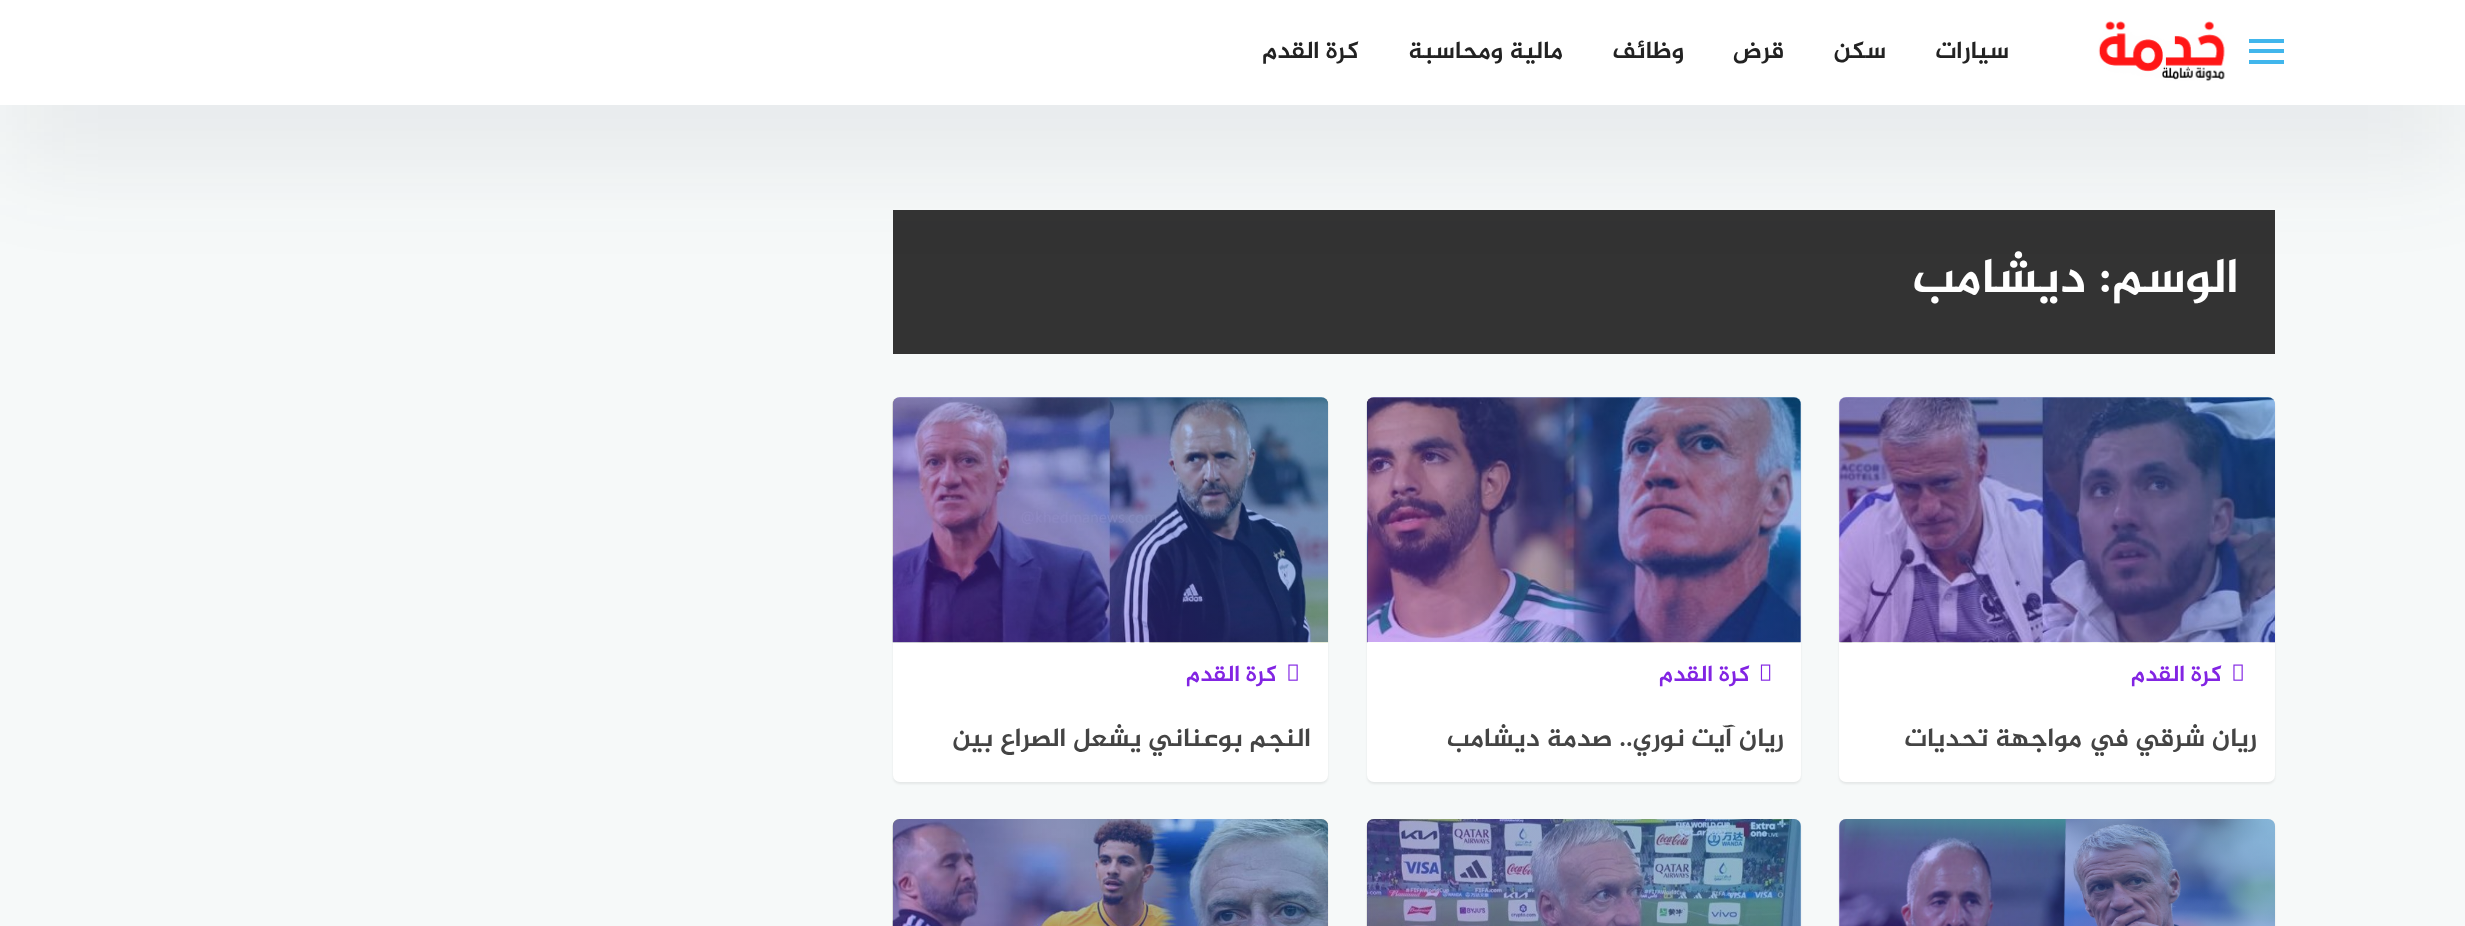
<svg xmlns="http://www.w3.org/2000/svg" xmlns:xlink="http://www.w3.org/1999/xlink" width="2465" height="926" viewBox="0 0 2465 926">
<style>
.cls-1{font:bold 24.5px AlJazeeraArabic;direction:rtl;fill:#222222}
.cls-2{font:bold 49px AlJazeeraArabic;direction:rtl;fill:#ffffff}
.cls-3{font:bold 23px AlJazeeraArabic;direction:rtl;fill:#8224e3}
.cls-4{font:bold 26.25px AlJazeeraArabic;direction:rtl;fill:#444444}
</style>
<defs>
<linearGradient id="g1" gradientUnits="userSpaceOnUse" x1="1887" y1="690" x2="2227" y2="350"><stop offset="0" stop-color="#8224e3" stop-opacity="0.4"/><stop offset="1" stop-color="#0070c6" stop-opacity="0.4"/></linearGradient>
<linearGradient id="g2" gradientUnits="userSpaceOnUse" x1="1414" y1="690" x2="1754" y2="350"><stop offset="0" stop-color="#8224e3" stop-opacity="0.4"/><stop offset="1" stop-color="#0070c6" stop-opacity="0.4"/></linearGradient>
<linearGradient id="g3" gradientUnits="userSpaceOnUse" x1="940" y1="690" x2="1281" y2="350"><stop offset="0" stop-color="#8224e3" stop-opacity="0.4"/><stop offset="1" stop-color="#0070c6" stop-opacity="0.4"/></linearGradient>
<linearGradient id="g4" gradientUnits="userSpaceOnUse" x1="1887" y1="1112" x2="2227" y2="771"><stop offset="0" stop-color="#8224e3" stop-opacity="0.4"/><stop offset="1" stop-color="#0070c6" stop-opacity="0.4"/></linearGradient>
<linearGradient id="g5" gradientUnits="userSpaceOnUse" x1="1414" y1="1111" x2="1754" y2="772"><stop offset="0" stop-color="#8224e3" stop-opacity="0.4"/><stop offset="1" stop-color="#0070c6" stop-opacity="0.4"/></linearGradient>
<linearGradient id="g6" gradientUnits="userSpaceOnUse" x1="940" y1="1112" x2="1281" y2="771"><stop offset="0" stop-color="#8224e3" stop-opacity="0.4"/><stop offset="1" stop-color="#0070c6" stop-opacity="0.4"/></linearGradient>
</defs>
<rect width="100%" height="100%" fill="#f6f9f9"/>
<rect fill="#333333" x="893" y="210" width="1382" height="144"/>
<rect fill="#363949" fill-opacity="0.09" filter="blur(52.5px)" x="0" y="51" width="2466" height="105"/>
<rect fill="#ffffff" x="0" y="0" width="2465" height="105"/>
<rect fill="#41b6ec" x="2249" y="39" width="35" height="4"/>
<rect fill="#41b6ec" x="2249" y="49" width="35" height="4"/>
<rect fill="#41b6ec" x="2249" y="60" width="35" height="4"/>
<image xlink:href="image0.png" x="2098" y="21" width="127" height="60"/>
<rect fill="#000000" fill-opacity="0.07" filter="blur(1px)" x="1839" y="399" width="436" height="385" rx="7"/>
<rect fill="#ffffff" x="1839" y="397" width="436" height="385" rx="7"/>
<path fill="#ececec" d="M1846 397H2268C2272 397 2275 400 2275 404V642H1839V404C1839 400 1842 397 1846 397Z"/>
<image xlink:href="image1.png" x="1839" y="397" width="436" height="246"/>
<path fill="url(#g1)" d="M1846 397H2268C2272 397 2275 400 2275 404V642H1839V404C1839 400 1842 397 1846 397Z"/>
<image xlink:href="image2.png" x="2233" y="664" width="10" height="17"/>
<rect fill="#000000" fill-opacity="0.07" filter="blur(1px)" x="1367" y="399" width="434" height="385" rx="7"/>
<rect fill="#ffffff" x="1367" y="397" width="434" height="385" rx="7"/>
<path fill="#ececec" d="M1374 397H1794C1798 397 1801 400 1801 404V642H1367V404C1367 400 1370 397 1374 397Z"/>
<image xlink:href="image3.png" x="1366" y="397" width="435" height="246"/>
<path fill="url(#g2)" d="M1374 397H1794C1798 397 1801 400 1801 404V642H1367V404C1367 400 1370 397 1374 397Z"/>
<image xlink:href="image4.png" x="1760" y="664" width="11" height="17"/>
<rect fill="#000000" fill-opacity="0.07" filter="blur(1px)" x="893" y="399" width="435" height="385" rx="7"/>
<rect fill="#ffffff" x="893" y="397" width="435" height="385" rx="7"/>
<path fill="#ececec" d="M900 397H1321C1325 397 1328 400 1328 404V642H893V404C893 400 896 397 900 397Z"/>
<image xlink:href="image5.png" x="892" y="397" width="437" height="246"/>
<path fill="url(#g3)" d="M900 397H1321C1325 397 1328 400 1328 404V642H893V404C893 400 896 397 900 397Z"/>
<image xlink:href="image2.png" x="1288" y="664" width="10" height="17"/>
<rect fill="#000000" fill-opacity="0.07" filter="blur(1px)" x="1839" y="821" width="436" height="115" rx="7"/>
<path fill="#ececec" d="M1846 819H2268C2272 819 2275 822 2275 826V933H1839V826C1839 822 1842 819 1846 819Z"/>
<image xlink:href="image6.png" x="1839" y="819" width="436" height="107"/>
<path fill="url(#g4)" d="M1846 819H2268C2272 819 2275 822 2275 826V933H1839V826C1839 822 1842 819 1846 819Z"/>
<rect fill="#000000" fill-opacity="0.07" filter="blur(1px)" x="1367" y="821" width="434" height="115" rx="7"/>
<path fill="#ececec" d="M1374 819H1794C1798 819 1801 822 1801 826V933H1367V826C1367 822 1370 819 1374 819Z"/>
<image xlink:href="image7.png" x="1366" y="819" width="435" height="107"/>
<path fill="url(#g5)" d="M1374 819H1794C1798 819 1801 822 1801 826V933H1367V826C1367 822 1370 819 1374 819Z"/>
<image xlink:href="image8.png" x="892" y="819" width="437" height="107"/>
<path fill="url(#g6)" d="M900 819H1321C1325 819 1328 822 1328 826V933H893V826C893 822 896 819 900 819Z"/>
<text class="cls-1" x="2009" y="58">سيارات</text>
<text class="cls-1" x="1886" y="58">سكن</text>
<text class="cls-1" x="1784" y="58">قرض</text>
<text class="cls-1" x="1684" y="58">وظائف</text>
<text class="cls-1" x="1563" y="58">مالية ومحاسبة</text>
<text class="cls-1" x="1359" y="58">كرة القدم</text>
<text class="cls-2" x="2239" y="292">الوسم:</text>
<text class="cls-2" x="2086" y="292">ديشامب</text>
<text class="cls-3" x="2222" y="681">كرة القدم</text>
<text class="cls-4" x="2257" y="746">ريان شرقي في مواجهة تحديات</text>
<text class="cls-3" x="1750" y="681">كرة القدم</text>
<text class="cls-4" x="1784" y="746">ريان آيت نوري.. صدمة ديشامب</text>
<text class="cls-3" x="1277" y="681">كرة القدم</text>
<text class="cls-4" x="1311" y="746">النجم بوعناني يشعل الصراع بين</text>
</svg>
